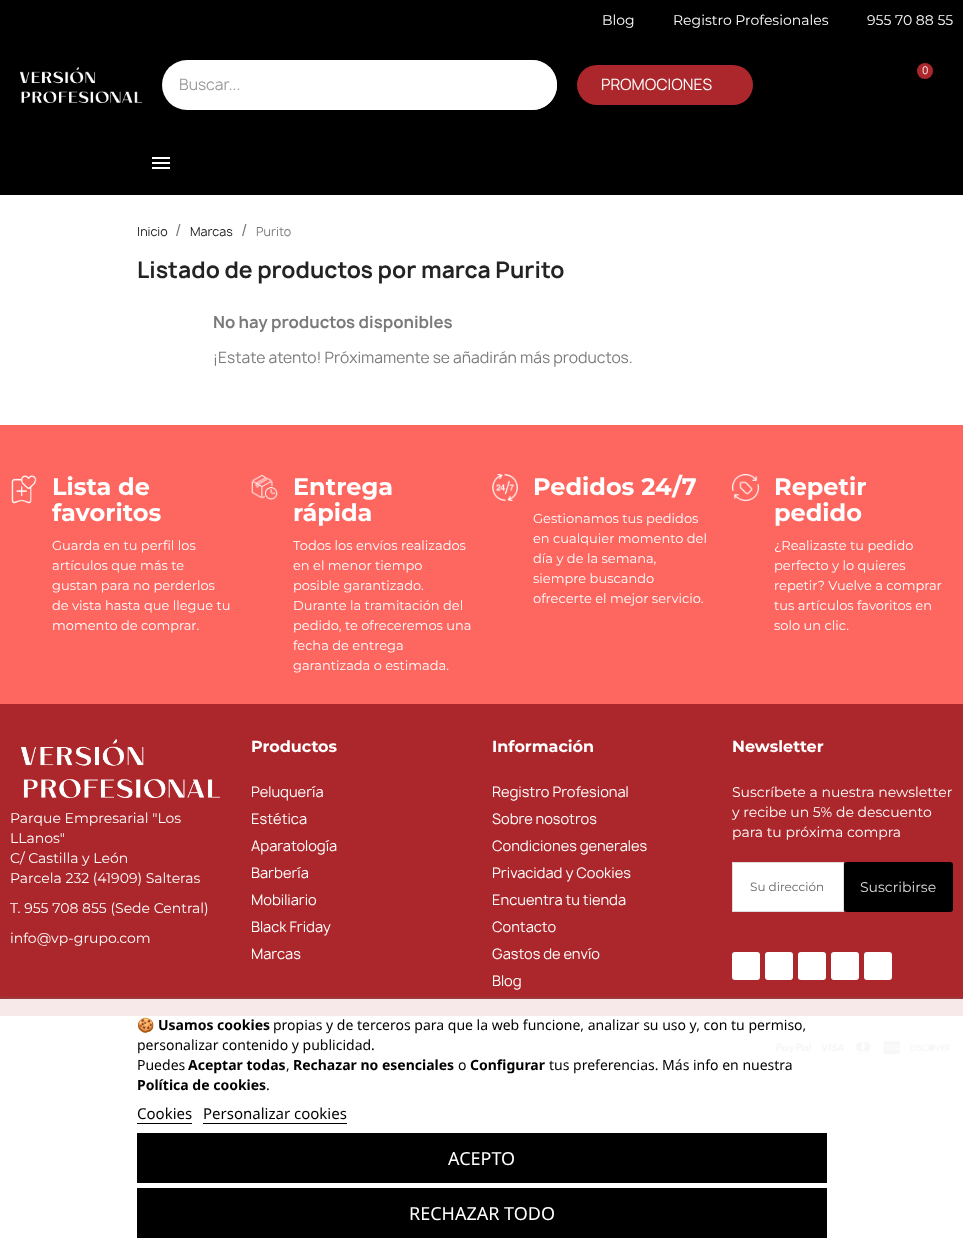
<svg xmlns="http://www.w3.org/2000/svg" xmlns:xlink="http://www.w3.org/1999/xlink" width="963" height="1254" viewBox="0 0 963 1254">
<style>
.cls-1{font:100 14px Montserrat;fill:#ffffff}
.cls-2{font:15px Manrope;fill:#999b9d}
.cls-3{font:15px Manrope;fill:#ffffff}
.cls-4{font:10px Manrope;fill:#ffffff}
.cls-5{font:12px Manrope;fill:#232323}
.cls-6{font:16px Manrope;fill:#7a7a7a}
.cls-7{font:12px Manrope;fill:#7a7a7a}
.cls-8{font:bold 22px Manrope;fill:#232323}
.cls-9{font:bold 16px Manrope;fill:#7a7a7a}
.cls-10{font:15px Manrope;fill:#7a7a7a}
.cls-11{font:bold 24px Montserrat;fill:#ffffff}
.cls-12{font:100 13px Montserrat;fill:#ffffff}
.cls-13{font:14px Noto Color Emoji;fill:#000000}
.cls-14{font:bold 14px Noto Sans;fill:#000000}
.cls-15{font:14px Noto Sans;fill:#000000}
.cls-16{font:15px Noto Sans;fill:#000000}
.cls-17{font:18px Noto Sans;fill:#ffffff}
.cls-18{font:bold 16px Montserrat;fill:#ffffff}
.cls-19{font:14px Manrope;fill:#ffffff}
.cls-20{font:100 12px Montserrat;fill:#666666}
.cls-21{font:100 14px Montserrat;fill:#dddddd}
</style>
<defs>
<clipPath id="clip1"><rect x="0" y="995" width="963" height="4"/></clipPath>
</defs>
<rect width="100%" height="100%" fill="#ffffff"/>
<rect fill="#000000" x="0" y="0" width="963" height="195"/>
<image xlink:href="image0.png" x="20" y="67" width="122" height="36"/>
<rect fill="#ffffff" x="162" y="60" width="395" height="50" rx="25"/>
<path fill="#ffffff" d="M507 60H532C546 60 557 71 557 85C557 99 546 110 532 110H507Z"/>
<rect fill="#ac272c" x="577" y="65" width="176" height="40" rx="20"/>
<circle fill="#ac272c" cx="925" cy="71" r="8"/>
<rect fill="#ffffff" x="152" y="157" width="18" height="2"/>
<rect fill="#ffffff" x="152" y="162" width="18" height="2"/>
<rect fill="#ffffff" x="152" y="167" width="18" height="2"/>
<rect fill="#fe6660" x="0" y="425" width="963" height="279"/>
<image xlink:href="image1.png" x="11" y="475" width="26" height="29"/>
<image xlink:href="image2.png" x="251" y="474" width="27" height="26"/>
<image xlink:href="image3.png" x="492" y="474" width="26" height="27"/>
<image xlink:href="image4.png" x="732" y="474" width="27" height="27"/>
<rect fill="#ac272c" x="0" y="704" width="963" height="295"/>
<rect fill="#f7e9ea" x="0" y="999" width="963" height="17"/>
<image xlink:href="image6.png" x="775" y="1041" width="176" height="14"/>
<g clip-path="url(#clip1)">
<rect fill="#707070" filter="blur(2.5px)" x="0" y="1000" width="963" height="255"/>
</g>
<rect fill="#000000" x="137" y="1123" width="55" height="1"/>
<rect fill="#000000" x="203" y="1123" width="144" height="1"/>
<rect fill="#000000" x="137" y="1133" width="690" height="50"/>
<rect fill="#000000" x="137" y="1188" width="690" height="50"/>
<image xlink:href="image5.png" x="21" y="739" width="199" height="59"/>
<rect fill="#ffffff" stroke="#dddddd" x="732.5" y="862.5" width="111" height="49"/>
<rect fill="#000000" x="844" y="862" width="109" height="50" rx="3"/>
<rect fill="#ffffff" x="732" y="952" width="28" height="28" rx="3"/>
<rect fill="#ffffff" x="765" y="952" width="28" height="28" rx="3"/>
<rect fill="#ffffff" x="798" y="952" width="28" height="28" rx="3"/>
<rect fill="#ffffff" x="831" y="952" width="28" height="28" rx="3"/>
<rect fill="#ffffff" x="864" y="952" width="28" height="28" rx="3"/>
<text class="cls-1" x="602" y="25">Blog</text>
<text class="cls-1" x="673" y="25">Registro Profesionales</text>
<text class="cls-1" x="867" y="25">955 70 88 55</text>
<text class="cls-2" x="179" y="90">Buscar...</text>
<text class="cls-3" x="601" y="90">PROMOCIONES</text>
<text class="cls-4" x="922" y="74">0</text>
<text class="cls-5" x="137" y="236">Inicio</text>
<text class="cls-6" x="175" y="236">/</text>
<text class="cls-5" x="190" y="236">Marcas</text>
<text class="cls-6" x="241" y="236">/</text>
<text class="cls-7" x="256" y="236">Purito</text>
<text class="cls-8" x="137" y="278">Listado de productos por marca Purito</text>
<text class="cls-9" x="213" y="328">No hay productos disponibles</text>
<text class="cls-10" x="213" y="363">¡Estate atento! Próximamente se añadirán más productos.</text>
<text class="cls-11"><tspan x="52" y="495">Lista de</tspan><tspan x="52" y="521">favoritos</tspan></text>
<text class="cls-12"><tspan x="52" y="550">Guarda en tu perfil los</tspan><tspan x="52" y="570">artículos que más te</tspan><tspan x="52" y="590">gustan para no perderlos</tspan><tspan x="52" y="610">de vista hasta que llegue tu</tspan><tspan x="52" y="630">momento de comprar.</tspan></text>
<text class="cls-11"><tspan x="293" y="495">Entrega</tspan><tspan x="293" y="521">rápida</tspan></text>
<text class="cls-12"><tspan x="293" y="550">Todos los envíos realizados</tspan><tspan x="293" y="570">en el menor tiempo</tspan><tspan x="293" y="590">posible garantizado.</tspan><tspan x="293" y="610">Durante la tramitación del</tspan><tspan x="293" y="630">pedido, te ofreceremos una</tspan><tspan x="293" y="650">fecha de entrega</tspan><tspan x="293" y="670">garantizada o estimada.</tspan></text>
<text class="cls-11" x="533" y="495">Pedidos 24/7</text>
<text class="cls-12"><tspan x="533" y="523">Gestionamos tus pedidos</tspan><tspan x="533" y="543">en cualquier momento del</tspan><tspan x="533" y="563">día y de la semana,</tspan><tspan x="533" y="583">siempre buscando</tspan><tspan x="533" y="603">ofrecerte el mejor servicio.</tspan></text>
<text class="cls-11"><tspan x="774" y="495">Repetir</tspan><tspan x="774" y="521">pedido</tspan></text>
<text class="cls-12"><tspan x="774" y="550">¿Realizaste tu pedido</tspan><tspan x="774" y="570">perfecto y lo quieres</tspan><tspan x="774" y="590">repetir? Vuelve a comprar</tspan><tspan x="774" y="610">tus artículos favoritos en</tspan><tspan x="774" y="630">solo un clic.</tspan></text>
<text class="cls-13" x="137" y="1030">🍪</text>
<text class="cls-14" x="158" y="1030">Usamos cookies</text>
<text class="cls-15" x="273" y="1030">propias y de terceros para que la web funcione, analizar su uso y, con tu permiso,</text>
<text class="cls-15"><tspan x="137" y="1050">personalizar contenido y publicidad.</tspan><tspan x="137" y="1070">Puedes</tspan></text>
<text class="cls-14" x="188" y="1070">Aceptar todas</text>
<text class="cls-15" x="286" y="1070">,</text>
<text class="cls-14" x="293" y="1070">Rechazar no esenciales</text>
<text class="cls-15" x="458" y="1070">o</text>
<text class="cls-14" x="470" y="1070">Configurar</text>
<text class="cls-15" x="549" y="1070">tus preferencias. Más info en nuestra</text>
<text class="cls-14" x="137" y="1090">Política de cookies</text>
<text class="cls-15" x="266" y="1090">.</text>
<text class="cls-16" x="137" y="1119">Cookies</text>
<text class="cls-16" x="203" y="1119">Personalizar cookies</text>
<text class="cls-17" x="448" y="1165">ACEPTO</text>
<text class="cls-17" x="409" y="1220">RECHAZAR TODO</text>
<text class="cls-1"><tspan x="10" y="823">Parque Empresarial "Los</tspan><tspan x="10" y="843">LLanos"</tspan><tspan x="10" y="863">C/ Castilla y León</tspan><tspan x="10" y="883">Parcela 232 (41909) Salteras</tspan></text>
<text class="cls-1" x="10" y="913">T. 955 708 855 (Sede Central)</text>
<text class="cls-1" x="10" y="943">info@vp-grupo.com</text>
<text class="cls-18" x="251" y="752">Productos</text>
<text class="cls-19"><tspan x="251" y="797">Peluquería</tspan><tspan x="251" y="824">Estética</tspan><tspan x="251" y="851">Aparatología</tspan><tspan x="251" y="878">Barbería</tspan><tspan x="251" y="905">Mobiliario</tspan><tspan x="251" y="932">Black Friday</tspan><tspan x="251" y="959">Marcas</tspan></text>
<text class="cls-18" x="492" y="752">Información</text>
<text class="cls-19"><tspan x="492" y="797">Registro Profesional</tspan><tspan x="492" y="824">Sobre nosotros</tspan><tspan x="492" y="851">Condiciones generales</tspan><tspan x="492" y="878">Privacidad y Cookies</tspan><tspan x="492" y="905">Encuentra tu tienda</tspan><tspan x="492" y="932">Contacto</tspan><tspan x="492" y="959">Gastos de envío</tspan><tspan x="492" y="986">Blog</tspan></text>
<text class="cls-18" x="732" y="752">Newsletter</text>
<text class="cls-1"><tspan x="732" y="797">Suscríbete a nuestra newsletter</tspan><tspan x="732" y="817">y recibe un 5% de descuento</tspan><tspan x="732" y="837">para tu próxima compra</tspan></text>
<text class="cls-20" x="750" y="891">Su dirección</text>
<text class="cls-21" x="860" y="892">Suscribirse</text>
</svg>
